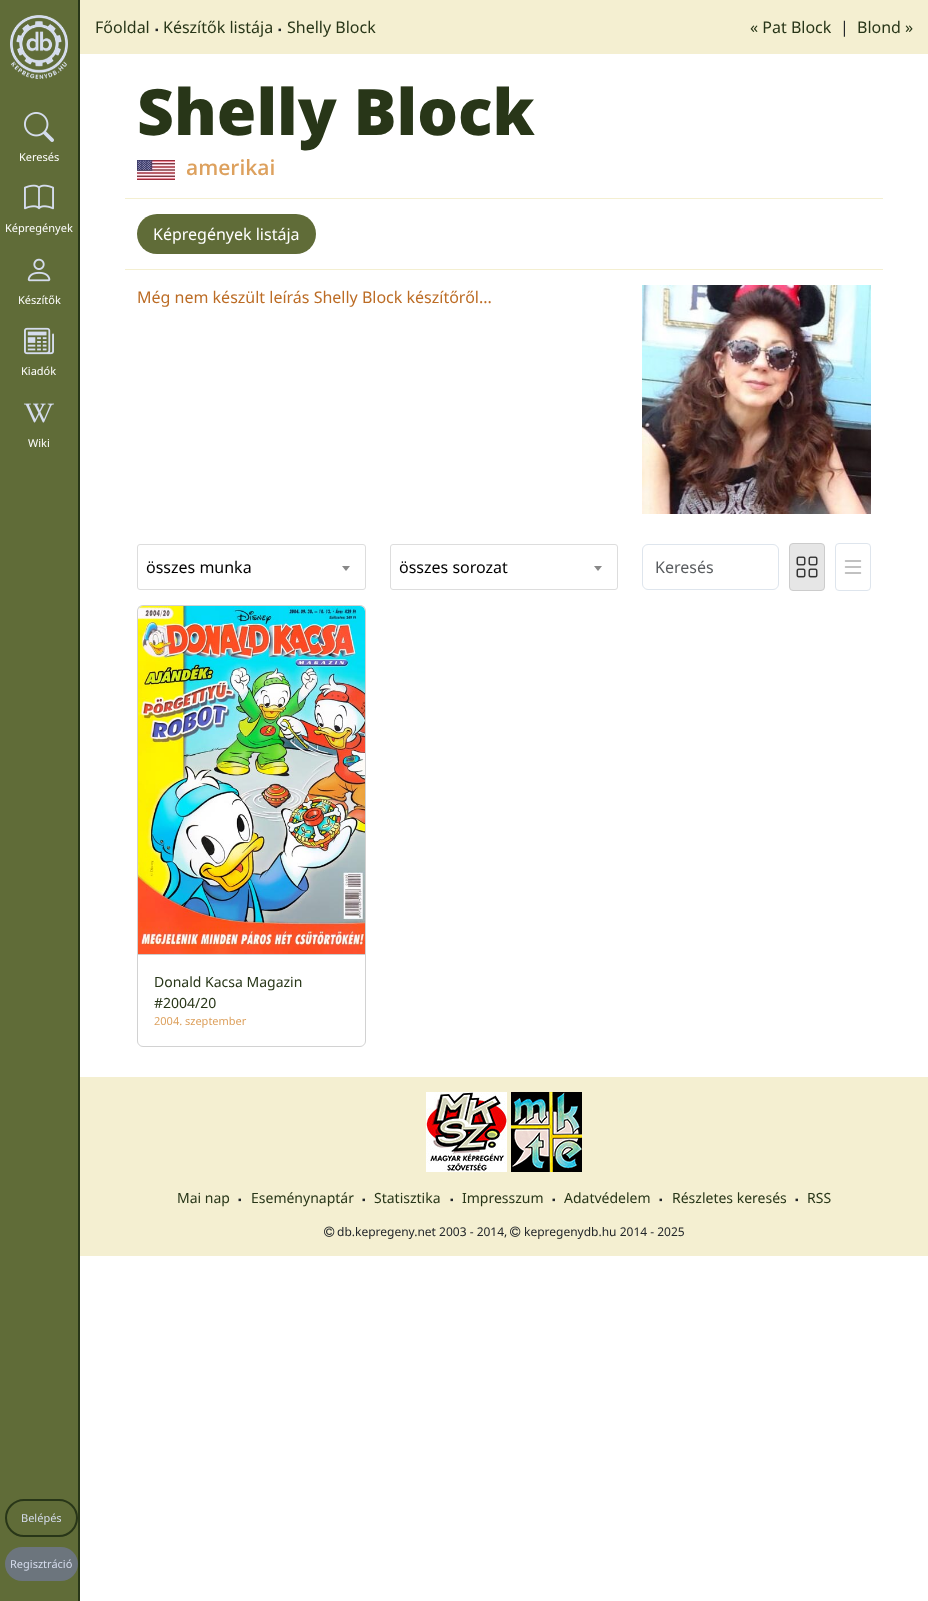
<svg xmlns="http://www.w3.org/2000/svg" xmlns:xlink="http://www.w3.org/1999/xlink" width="928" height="1601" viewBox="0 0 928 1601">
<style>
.cls-1{font:11px Noto Sans;fill:#ffffff}
.cls-2{font:11px Noto Sans;fill:#d5dced}
.cls-3{font:16px Noto Sans;fill:#283618}
.cls-4{font:10px Liberation Sans;fill:#212529}
.cls-5{font:16px Noto Sans;fill:#212529}
.cls-6{font:800 64px Open Sans;fill:#283618}
.cls-7{font:600 21px Open Sans;fill:#dda15e}
.cls-8{font:16px Noto Sans;fill:#ffffff}
.cls-9{font:16px Noto Sans;fill:#bc6c25}
.cls-10{font:16px Noto Sans;fill:#000000}
.cls-11{font:16px Noto Sans;fill:#595c5f}
.cls-12{font:14px Noto Sans;fill:#283618}
.cls-13{font:11px Noto Sans;fill:#dda15e}
.cls-14{font:12px Noto Sans;fill:#212529}
</style>
<rect width="100%" height="100%" fill="#ffffff"/>
<rect fill="#606c38" x="0" y="0" width="78" height="1601"/>
<rect fill="#283618" x="78" y="0" width="2" height="1601"/>
<image xlink:href="image0.png" x="10" y="15" width="58" height="64"/>
<image xlink:href="image1.png" x="24" y="112" width="30" height="30"/>
<image xlink:href="image2.png" x="24" y="184" width="30" height="26"/>
<image xlink:href="image3.png" x="27" y="258" width="24" height="24"/>
<image xlink:href="image4.png" x="24" y="327" width="30" height="28"/>
<image xlink:href="image5.png" x="24" y="403" width="30" height="20"/>
<rect fill="none" stroke="#283618" stroke-width="2" x="6" y="1500" width="71" height="36" rx="18"/>
<rect fill="#6c757d" x="5" y="1547" width="73" height="34" rx="17"/>
<rect fill="#f4efd1" x="80" y="0" width="848" height="54"/>
<image xlink:href="image6.png" x="137" y="160" width="38" height="20"/>
<rect fill="#f4efd1" x="125" y="198" width="758" height="1"/>
<rect fill="#f4efd1" x="125" y="269" width="758" height="1"/>
<rect fill="#606c38" x="137" y="214" width="179" height="40" rx="20"/>
<image xlink:href="image7.png" x="642" y="285" width="229" height="229"/>
<rect fill="none" stroke="#dddddd" x="137.5" y="544.5" width="228" height="45" rx="2.5"/>
<path fill="#888888" d="M342 566H350L346 571Z"/>
<rect fill="none" stroke="#dddddd" x="390.5" y="544.5" width="227" height="45" rx="2.5"/>
<path fill="#888888" d="M594 566H602L598 571Z"/>
<rect fill="none" stroke="#dee5ed" x="642.5" y="544.5" width="136" height="45" rx="5.5"/>
<rect fill="#e6e6e6" stroke="#cccccc" x="789.5" y="543.5" width="35" height="47" rx="3.5"/>
<image xlink:href="image8.png" x="796" y="556" width="22" height="22"/>
<rect fill="none" stroke="#dee5ed" x="835.5" y="543.5" width="35" height="47" rx="3.5"/>
<image xlink:href="image9.png" x="844" y="560" width="18" height="14"/>
<rect fill="none" stroke="#d2d2d2" x="137.5" y="605.5" width="228" height="441" rx="5.5"/>
<rect fill="#212529" fill-opacity="0.03" x="138" y="606" width="227" height="5"/>
<rect fill="#cdcdcd" x="138" y="954" width="227" height="1"/>
<image xlink:href="image10.png" x="138" y="606" width="227" height="348"/>
<rect fill="#f4efd1" x="80" y="1077" width="848" height="179"/>
<image xlink:href="image11.png" x="426" y="1092" width="81" height="80"/>
<image xlink:href="image12.png" x="511" y="1092" width="71" height="80"/>
<image xlink:href="image13.png" x="324" y="1226" width="11" height="11"/>
<image xlink:href="image13.png" x="510" y="1226" width="11" height="11"/>
<text class="cls-1" x="19" y="161">Keresés</text>
<text class="cls-1" x="5" y="232">Képregények</text>
<text class="cls-1" x="18" y="304">Készítők</text>
<text class="cls-1" x="21" y="375">Kiadók</text>
<text class="cls-1" x="28" y="447">Wiki</text>
<text class="cls-2" x="21" y="1522">Belépés</text>
<text class="cls-2" x="10" y="1568">Regisztráció</text>
<text class="cls-3" x="95" y="33">Főoldal</text>
<text class="cls-4" x="155" y="33">▪</text>
<text class="cls-3" x="163" y="33">Készítők listája</text>
<text class="cls-4" x="278" y="33">▪</text>
<text class="cls-3" x="287" y="33">Shelly Block</text>
<text class="cls-3" x="750" y="33">« Pat Block</text>
<text class="cls-5" x="840" y="33">|</text>
<text class="cls-3" x="857" y="33">Blond »</text>
<text class="cls-6" x="137" y="135">Shelly Block</text>
<text class="cls-7" x="186" y="175">amerikai</text>
<text class="cls-8" x="153" y="240">Képregények listája</text>
<text class="cls-9" x="137" y="303">Még nem készült leírás Shelly Block készítőről...</text>
<text class="cls-10" x="146" y="573">összes munka</text>
<text class="cls-10" x="399" y="573">összes sorozat</text>
<text class="cls-11" x="655" y="573">Keresés</text>
<text class="cls-12"><tspan x="154" y="987">Donald Kacsa Magazin</tspan><tspan x="154" y="1008">#2004/20</tspan></text>
<text class="cls-13" x="154" y="1025">2004. szeptember</text>
<text class="cls-12" x="177" y="1203">Mai nap</text>
<text class="cls-4" x="238" y="1203">▪</text>
<text class="cls-12" x="251" y="1203">Eseménynaptár</text>
<text class="cls-4" x="362" y="1203">▪</text>
<text class="cls-12" x="374" y="1203">Statisztika</text>
<text class="cls-4" x="450" y="1203">▪</text>
<text class="cls-12" x="462" y="1203">Impresszum</text>
<text class="cls-4" x="552" y="1203">▪</text>
<text class="cls-12" x="564" y="1203">Adatvédelem</text>
<text class="cls-4" x="659" y="1203">▪</text>
<text class="cls-12" x="672" y="1203">Részletes keresés</text>
<text class="cls-4" x="795" y="1203">▪</text>
<text class="cls-12" x="807" y="1203">RSS</text>
<text class="cls-14" x="337" y="1236">db.kepregeny.net 2003 - 2014,</text>
<text class="cls-14" x="524" y="1236">kepregenydb.hu 2014 - 2025</text>
</svg>
